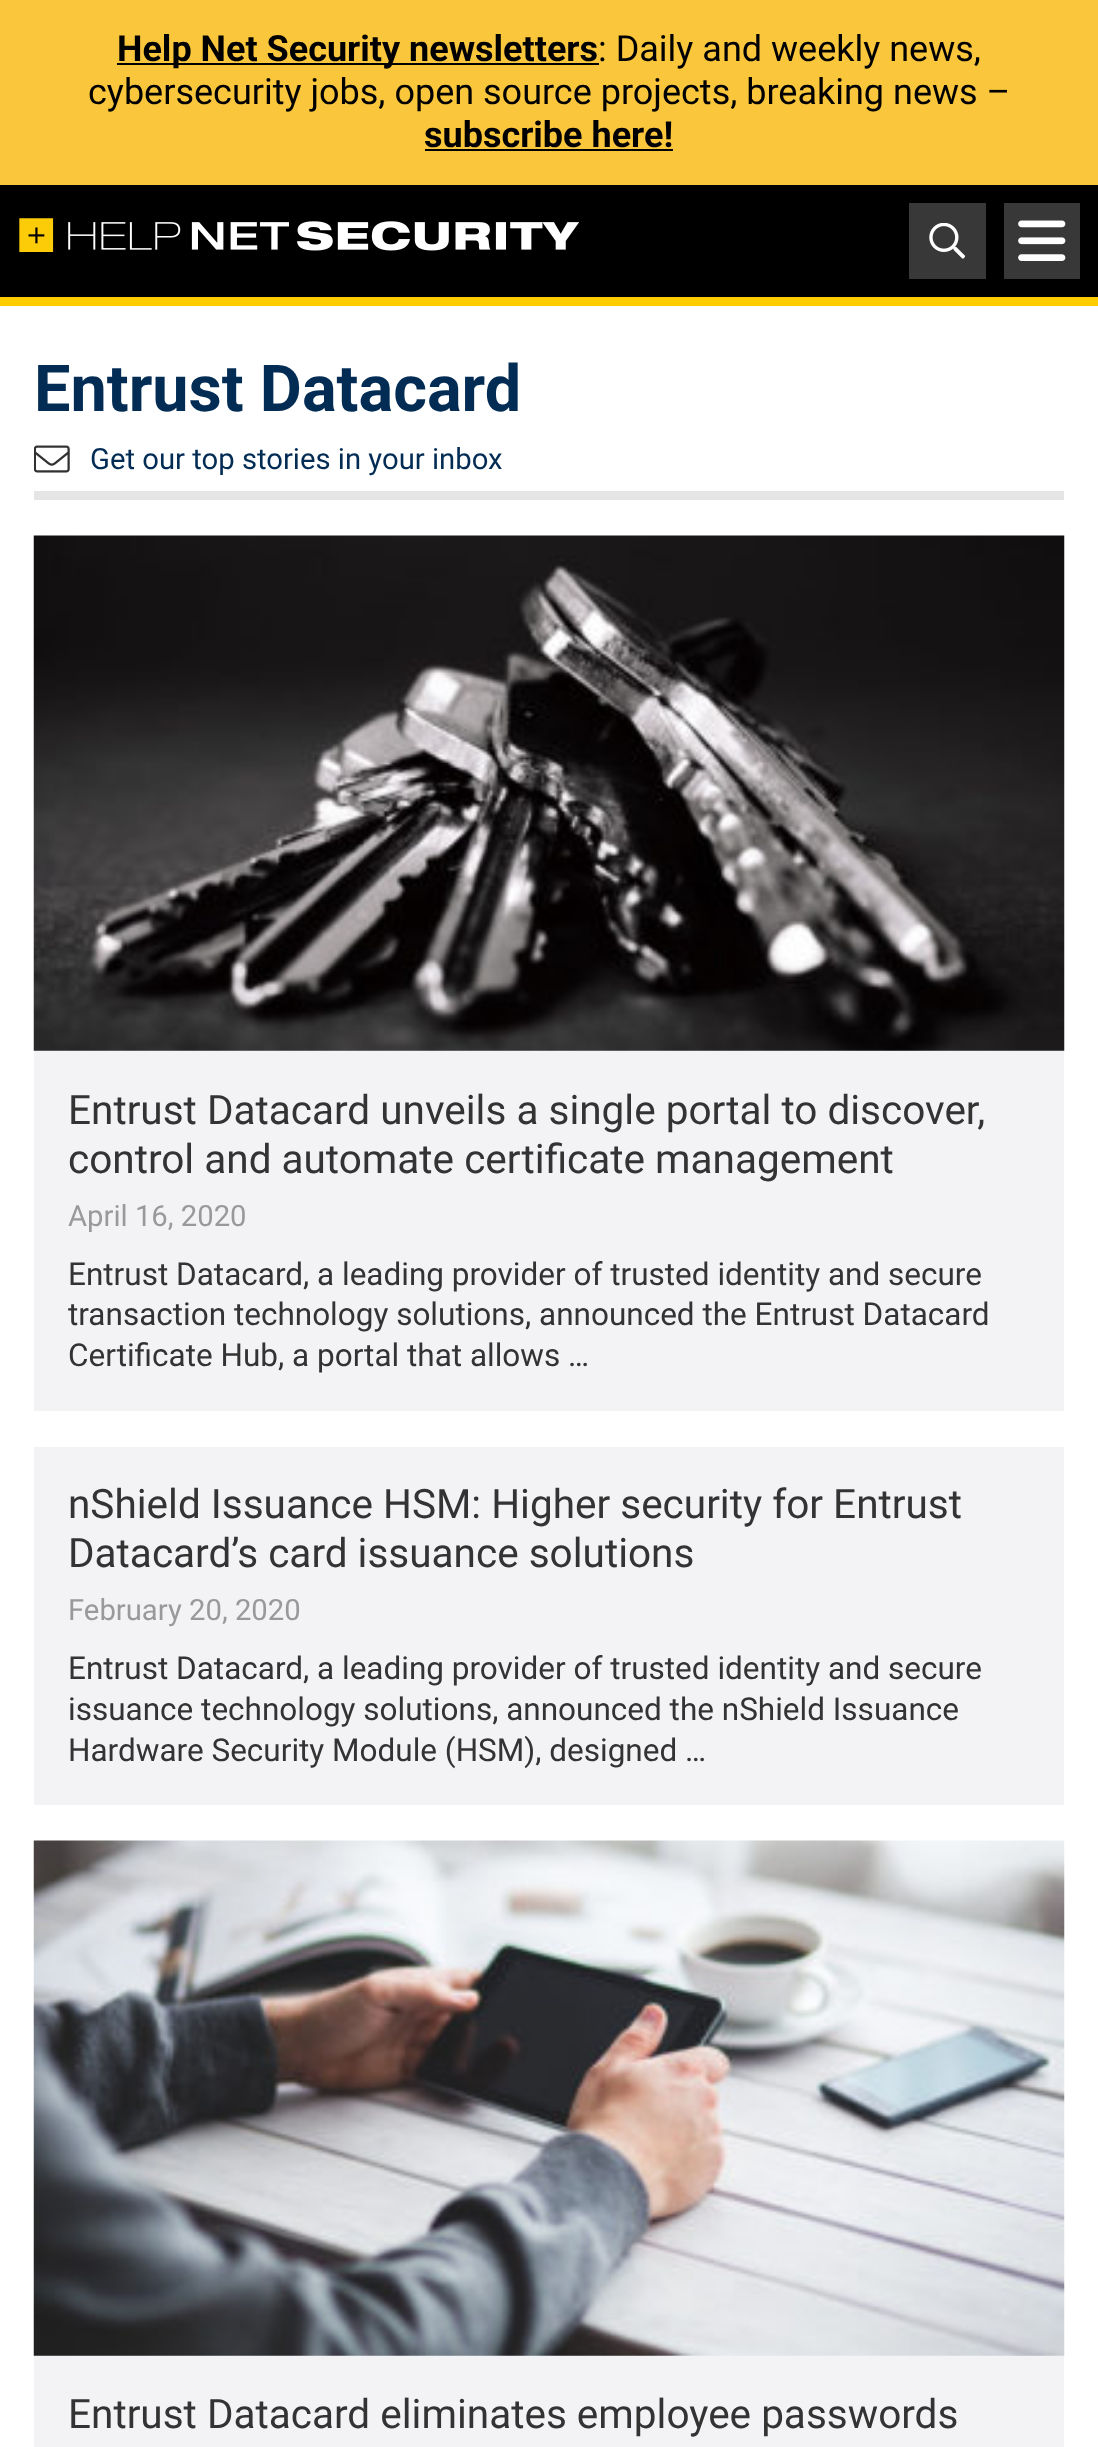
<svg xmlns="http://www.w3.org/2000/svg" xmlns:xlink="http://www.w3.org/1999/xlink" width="1098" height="2447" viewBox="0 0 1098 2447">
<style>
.cls-1{font:bold 36px Roboto;fill:#000000}
.cls-2{font:36px Roboto;fill:#000000}
.cls-3{font:bold 64.75px Roboto;fill:#032c55}
.cls-4{font:29.25px Roboto;fill:#032c55}
.cls-5{font:40.5px Roboto;fill:#333333}
.cls-6{font:29.25px Roboto;fill:#999999}
.cls-7{font:31.5px Roboto;fill:#333333}
</style>
<rect width="100%" height="100%" fill="#ffffff"/>
<rect fill="#f9c63c" x="0" y="0" width="1098" height="185"/>
<rect fill="#000000" x="117" y="63" width="482" height="2"/>
<rect fill="#000000" x="425" y="149" width="248" height="2"/>
<rect fill="#000000" x="0" y="185" width="1098" height="112"/>
<image xlink:href="image0.png" x="19" y="218" width="561" height="34"/>
<rect fill="#393838" x="909" y="203" width="77" height="76"/>
<image xlink:href="image1.png" x="929" y="223" width="36" height="36"/>
<rect fill="#393838" x="1004" y="203" width="76" height="76"/>
<image xlink:href="image2.png" x="1018" y="220" width="48" height="41"/>
<rect fill="#fdcd00" x="0" y="297" width="1098" height="9"/>
<rect fill="#e5e5e5" x="34" y="491" width="1030" height="9"/>
<image xlink:href="image3.png" x="34" y="445" width="36" height="28"/>
<rect fill="#f3f3f6" x="34" y="1050" width="1030" height="361"/>
<image xlink:href="image4.png" x="33" y="535" width="1032" height="516"/>
<rect fill="#f3f3f6" x="34" y="1447" width="1030" height="358"/>
<rect fill="#f3f3f6" x="34" y="2355" width="1030" height="92"/>
<image xlink:href="image5.png" x="33" y="1840" width="1032" height="516"/>
<text class="cls-1" x="117" y="61">Help Net Security newsletters</text>
<text class="cls-2" x="598" y="61">: Daily and weekly news,</text>
<text class="cls-2" x="88" y="104">cybersecurity jobs, open source projects, breaking news –</text>
<text class="cls-1" x="424" y="147">subscribe here!</text>
<text class="cls-3" x="34" y="411">Entrust Datacard</text>
<text class="cls-4" x="90" y="469">Get our top stories in your inbox</text>
<text class="cls-5"><tspan x="68" y="1124">Entrust Datacard unveils a single portal to discover,</tspan><tspan x="68" y="1173">control and automate certificate management</tspan></text>
<text class="cls-6" x="68" y="1226">April 16, 2020</text>
<text class="cls-7"><tspan x="68" y="1285">Entrust Datacard, a leading provider of trusted identity and secure</tspan><tspan x="68" y="1325">transaction technology solutions, announced the Entrust Datacard</tspan><tspan x="68" y="1366">Certificate Hub, a portal that allows …</tspan></text>
<text class="cls-5"><tspan x="68" y="1518">nShield Issuance HSM: Higher security for Entrust</tspan><tspan x="68" y="1567">Datacard’s card issuance solutions</tspan></text>
<text class="cls-6" x="68" y="1620">February 20, 2020</text>
<text class="cls-7"><tspan x="68" y="1679">Entrust Datacard, a leading provider of trusted identity and secure</tspan><tspan x="68" y="1720">issuance technology solutions, announced the nShield Issuance</tspan><tspan x="68" y="1761">Hardware Security Module (HSM), designed …</tspan></text>
<text class="cls-5" x="68" y="2428">Entrust Datacard eliminates employee passwords</text>
</svg>
